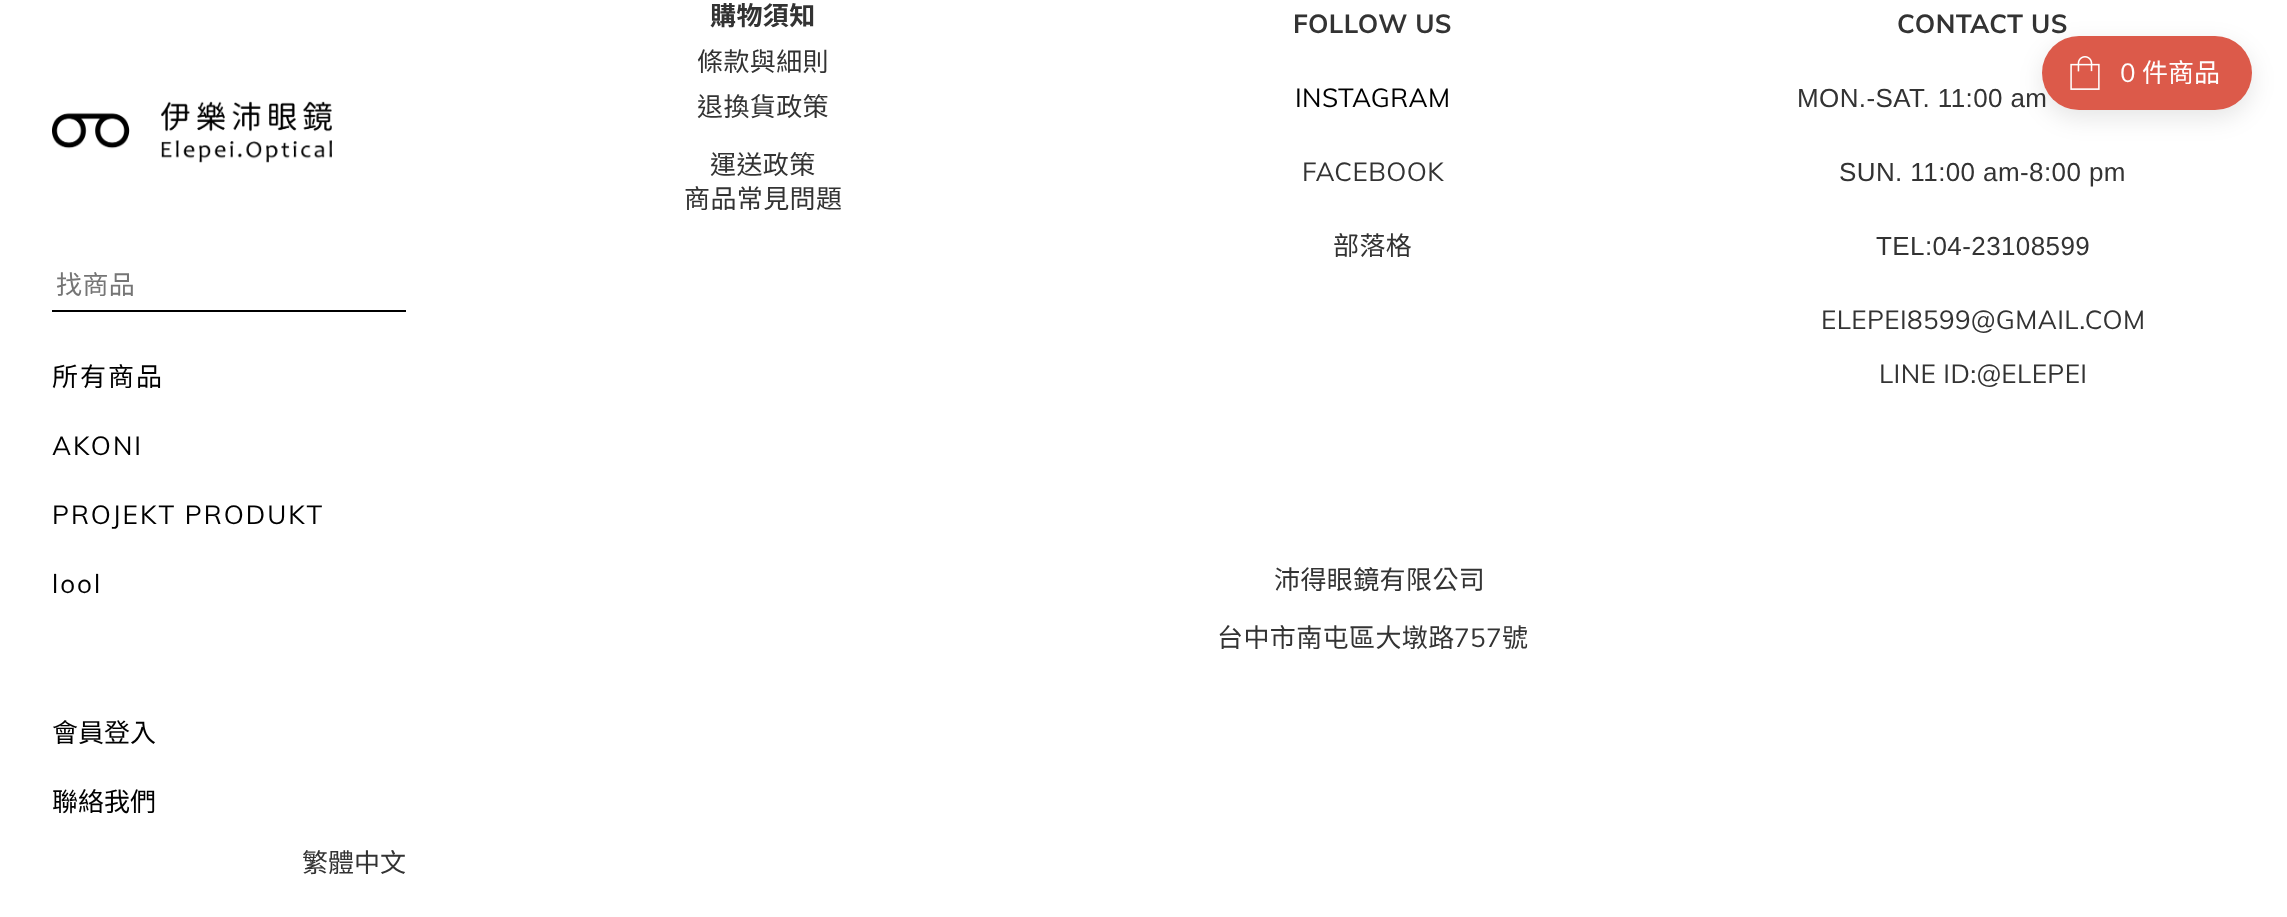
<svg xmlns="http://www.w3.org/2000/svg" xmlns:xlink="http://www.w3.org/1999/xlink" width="2287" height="917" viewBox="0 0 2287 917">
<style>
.cls-1{font:bold 26px Noto Sans TC;letter-spacing:0.4px;fill:#333333}
.cls-2{font:26px Noto Sans TC;letter-spacing:0.4px;fill:#333333}
.cls-3{font:bold 26px Muli;letter-spacing:0.4px;fill:#333333}
.cls-4{font:26px Muli;letter-spacing:0.4px;fill:#000000}
.cls-5{font:26px Muli;letter-spacing:0.4px;fill:#333333}
.cls-6{font:26px Liberation Sans;letter-spacing:0.4px;fill:#333333}
.cls-7{font:26px Muli;fill:#ffffff}
.cls-8{font:26px Noto Sans TC;fill:#ffffff}
.cls-9{font:26px Noto Sans TC;letter-spacing:0.4px;fill:#757575}
.cls-10{font:26px Noto Sans TC;letter-spacing:2px;fill:#000000}
.cls-11{font:26px Muli;letter-spacing:2px;fill:#000000}
.cls-12{font:26px Noto Sans TC;fill:#000000}
.cls-13{font:26px Noto Sans TC;fill:#333333}
</style>
<rect width="100%" height="100%" fill="#ffffff"/>
<rect fill="#000000" fill-opacity="0.1" filter="blur(12px)" x="2042" y="44" width="210" height="74" rx="37"/>
<image xlink:href="image1.png" x="52" y="101" width="280" height="62"/>
<rect fill="#000000" x="52" y="310" width="354" height="2"/>
<text class="cls-1" x="710" y="25">購物須知</text>
<text class="cls-2"><tspan x="697" y="71">條款與細則</tspan><tspan x="697" y="116">退換貨政策</tspan></text>
<text class="cls-2" x="710" y="174">運送政策</text>
<text class="cls-2" x="684" y="208">商品常見問題</text>
<text class="cls-3" x="1293" y="33">FOLLOW US</text>
<text class="cls-4" x="1295" y="107">INSTAGRAM</text>
<text class="cls-5" x="1302" y="181">FACEBOOK</text>
<text class="cls-2" x="1333" y="255">部落格</text>
<text class="cls-3" x="1897" y="33">CONTACT US</text>
<text class="cls-6" x="1797" y="107">MON.-SAT. 11:00 am</text>
<text class="cls-6" x="1839" y="181">SUN. 11:00 am-8:00 pm</text>
<text class="cls-6" x="1876" y="255">TEL:04-23108599</text>
<text class="cls-5" x="1821" y="329">ELEPEI8599@GMAIL.COM</text>
<text class="cls-5" x="1879" y="383">LINE ID:@ELEPEI</text>
<text class="cls-2" x="1274" y="589">沛得眼鏡有限公司</text>
<text class="cls-2" x="1217" y="647">台中市南屯區大墩路</text>
<text class="cls-5" x="1454" y="647">757</text>
<text class="cls-2" x="1502" y="647">號</text>
<rect fill="#dc5a4a" x="2042" y="36" width="210" height="74" rx="37"/>
<image xlink:href="image0.png" x="2070" y="56" width="30" height="34"/>
<text class="cls-7" x="2120" y="82">0</text>
<text class="cls-8" x="2142" y="82">件商品</text>
<text class="cls-9" x="56" y="294">找商品</text>
<text class="cls-10" x="52" y="386">所有商品</text>
<text class="cls-11" x="52" y="455">AKONI</text>
<text class="cls-11" x="52" y="524">PROJEKT PRODUKT</text>
<text class="cls-11" x="52" y="593">lool</text>
<text class="cls-12" x="52" y="742">會員登入</text>
<text class="cls-12" x="52" y="811">聯絡我們</text>
<text class="cls-13" x="302" y="872">繁體中文</text>
</svg>
